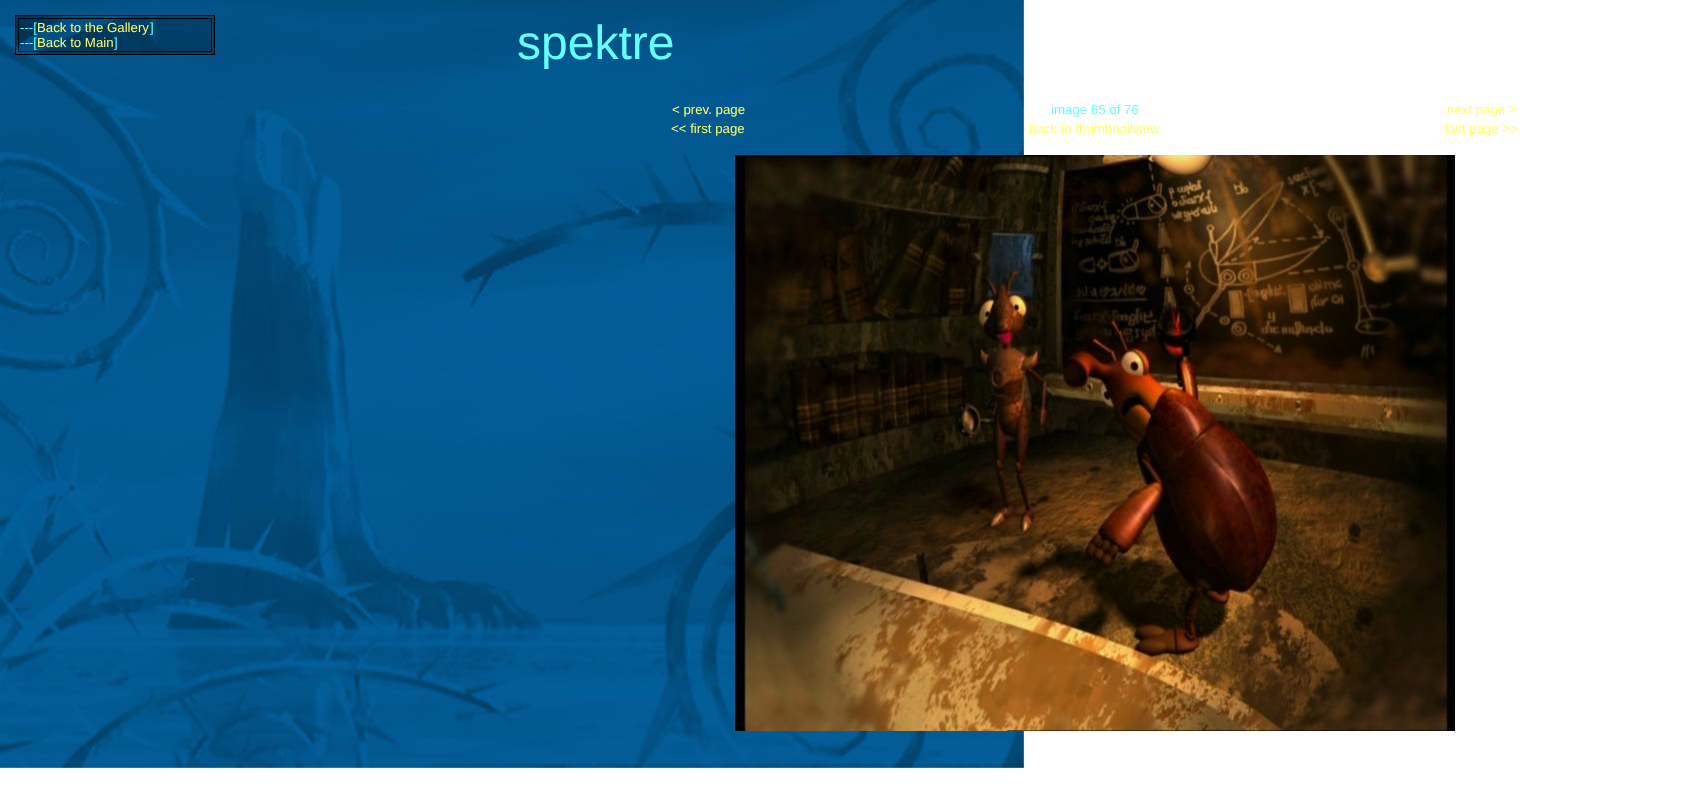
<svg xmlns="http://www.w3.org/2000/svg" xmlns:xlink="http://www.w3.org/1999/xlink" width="1688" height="791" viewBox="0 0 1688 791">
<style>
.cls-1{font:13.25px Liberation Sans;fill:#66ffff}
.cls-2{font:13.25px Liberation Sans;fill:#ffff66}
.cls-3{font:48px Liberation Sans;fill:#66ffff}
</style>
<rect width="100%" height="100%" fill="#ffffff"/>
<image xlink:href="image0.png" x="0" y="0" width="1024" height="768"/>
<image xlink:href="image1.png" x="16" y="16" width="198" height="38"/>
<rect fill="none" stroke="#000000" x="15.5" y="15.5" width="199" height="39"/>
<rect fill="none" stroke="#000000" x="18.5" y="18.5" width="193" height="33"/>
<image xlink:href="image2.png" x="735" y="155" width="720" height="576"/>
<text class="cls-1" x="20" y="32">---[</text>
<text class="cls-2" x="37" y="32">Back to the Gallery</text>
<text class="cls-1" x="150" y="32">]</text>
<text class="cls-1" x="20" y="47">---[</text>
<text class="cls-2" x="37" y="47">Back to Main</text>
<text class="cls-1" x="114" y="47">]</text>
<text class="cls-3" x="517" y="59">spektre</text>
<text class="cls-2" x="672" y="114">&lt; prev. page</text>
<text class="cls-1" x="1051" y="114">image 65 of 76</text>
<text class="cls-2" x="1447" y="114">next page &gt;</text>
<text class="cls-2" x="671" y="133">&lt;&lt; first page</text>
<text class="cls-2" x="1029" y="133">back to thumbnailview</text>
<text class="cls-2" x="1445" y="133">last page &gt;&gt;</text>
</svg>
